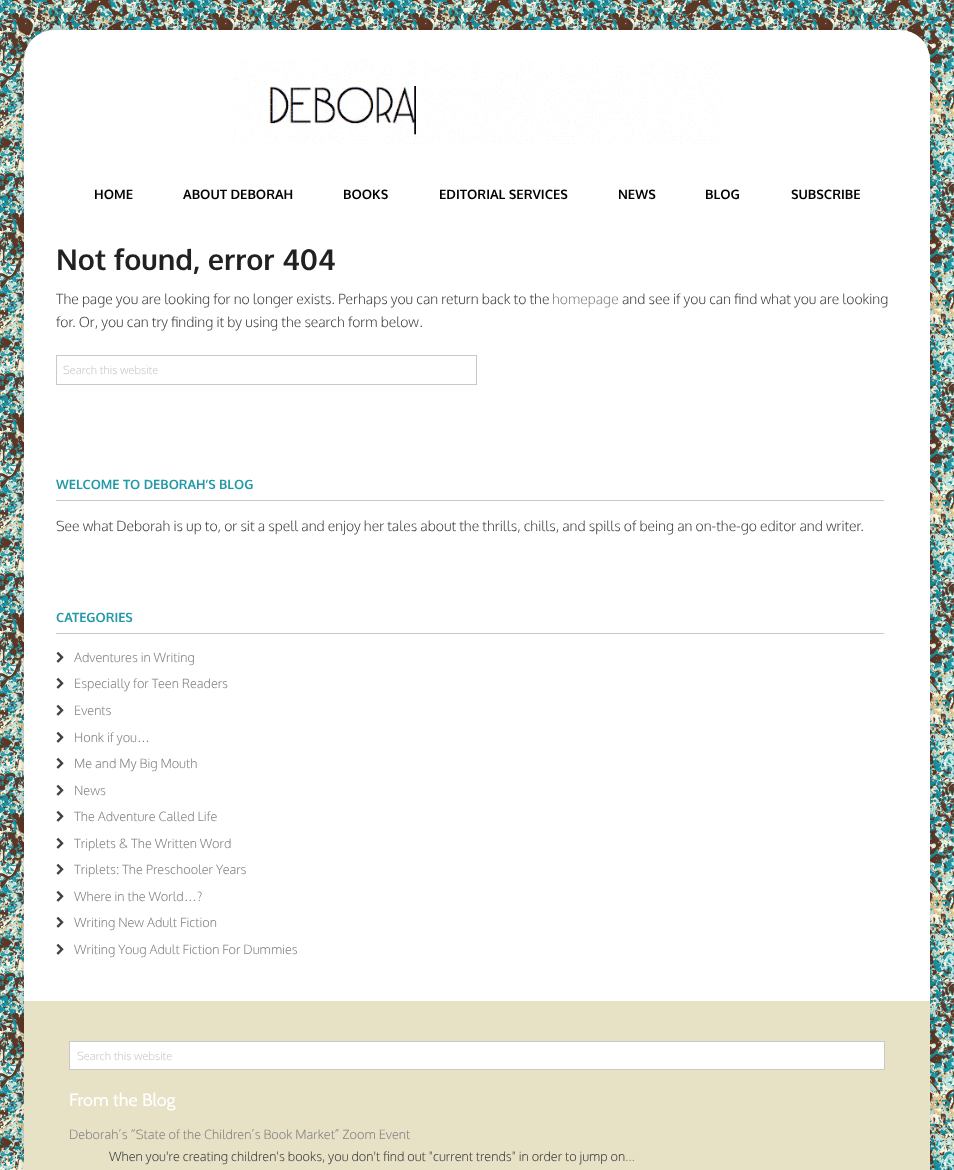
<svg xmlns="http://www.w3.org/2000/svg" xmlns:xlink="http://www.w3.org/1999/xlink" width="954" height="1170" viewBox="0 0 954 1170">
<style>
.cls-1{font:bold 13px Oxygen;fill:#000000}
.cls-2{font:bold 28.75px Oxygen;fill:#212121}
.cls-3{font:300 14px Oxygen;fill:#424242}
.cls-4{font:300 14px Oxygen;fill:#848484}
.cls-5{font:300 11.25px Oxygen;fill:#c9c9c9}
.cls-6{font:bold 12.8px Oxygen;fill:#2299a9}
.cls-7{font:300 12.8px Oxygen;fill:#848484}
.cls-8{font:12.8px Liberation Sans;fill:#848484}
.cls-9{font:18px Cabin;fill:#ffffff}
.cls-10{font:300 12.8px Oxygen;fill:#424242}
</style>
<rect width="100%" height="100%" fill="#ffffff"/>
<image xlink:href="image0.png" x="0" y="0" width="954" height="1170"/>
<rect fill="#000000" fill-opacity="0.2" filter="blur(5px)" x="24" y="31" width="906" height="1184" rx="30"/>
<rect fill="#ffffff" x="24" y="30" width="906" height="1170" rx="30"/>
<image xlink:href="image1.png" x="233" y="60" width="489" height="86"/>
<rect fill="none" stroke="#c9c9c9" x="56.5" y="355.5" width="420" height="29"/>
<rect fill="#c9c9c9" x="56" y="500" width="828" height="1"/>
<rect fill="#c9c9c9" x="56" y="633" width="828" height="1"/>
<image xlink:href="image2.png" x="56" y="651" width="8" height="12"/>
<image xlink:href="image2.png" x="56" y="677" width="8" height="12"/>
<image xlink:href="image2.png" x="56" y="704" width="8" height="12"/>
<image xlink:href="image2.png" x="56" y="731" width="8" height="12"/>
<image xlink:href="image2.png" x="56" y="757" width="8" height="12"/>
<image xlink:href="image2.png" x="56" y="784" width="8" height="12"/>
<image xlink:href="image2.png" x="56" y="810" width="8" height="12"/>
<image xlink:href="image2.png" x="56" y="837" width="8" height="12"/>
<image xlink:href="image2.png" x="56" y="863" width="8" height="12"/>
<image xlink:href="image2.png" x="56" y="890" width="8" height="12"/>
<image xlink:href="image2.png" x="56" y="916" width="8" height="12"/>
<image xlink:href="image2.png" x="56" y="943" width="8" height="12"/>
<rect fill="#e7e1c6" x="24" y="1001" width="906" height="169"/>
<rect fill="#ffffff" stroke="#c9c9c9" x="69.5" y="1041.5" width="815" height="28"/>
<text class="cls-1" x="94" y="199">HOME</text>
<text class="cls-1" x="183" y="199">ABOUT DEBORAH</text>
<text class="cls-1" x="343" y="199">BOOKS</text>
<text class="cls-1" x="439" y="199">EDITORIAL SERVICES</text>
<text class="cls-1" x="618" y="199">NEWS</text>
<text class="cls-1" x="705" y="199">BLOG</text>
<text class="cls-1" x="791" y="199">SUBSCRIBE</text>
<text class="cls-2" x="56" y="270">Not found, error 404</text>
<text class="cls-3" x="56" y="304">The page you are looking for no longer exists. Perhaps you can return back to the</text>
<text class="cls-4" x="552" y="304">homepage</text>
<text class="cls-3" x="622" y="304">and see if you can find what you are looking</text>
<text class="cls-3" x="56" y="327">for. Or, you can try finding it by using the search form below.</text>
<text class="cls-5" x="63" y="374">Search this website</text>
<text class="cls-6" x="56" y="489">WELCOME TO DEBORAH’S BLOG</text>
<text class="cls-3" x="56" y="531">See what Deborah is up to, or sit a spell and enjoy her tales about the thrills, chills, and spills of being an on-the-go editor and writer.</text>
<text class="cls-6" x="56" y="622">CATEGORIES</text>
<text class="cls-7" x="74" y="662">Adventures in Writing</text>
<text class="cls-7" x="74" y="688">Especially for Teen Readers</text>
<text class="cls-7" x="74" y="715">Events</text>
<text class="cls-7" x="74" y="742">Honk if you</text>
<text class="cls-8" x="137" y="742">…</text>
<text class="cls-7" x="74" y="768">Me and My Big Mouth</text>
<text class="cls-7" x="74" y="795">News</text>
<text class="cls-7" x="74" y="821">The Adventure Called Life</text>
<text class="cls-7" x="74" y="848">Triplets &amp; The Written Word</text>
<text class="cls-7" x="74" y="874">Triplets: The Preschooler Years</text>
<text class="cls-7" x="74" y="901">Where in the World</text>
<text class="cls-8" x="184" y="901">…</text>
<text class="cls-7" x="197" y="901">?</text>
<text class="cls-7" x="74" y="927">Writing New Adult Fiction</text>
<text class="cls-7" x="74" y="954">Writing Youg Adult Fiction For Dummies</text>
<text class="cls-5" x="77" y="1060">Search this website</text>
<text class="cls-9" x="69" y="1106">From the Blog</text>
<text class="cls-7" x="69" y="1139">Deborah’s “State of the Children’s Book Market” Zoom Event</text>
<text class="cls-10" x="109" y="1161">When you're creating children's books, you don't find out "current trends" in order to jump on</text>
<text class="cls-7" x="625" y="1161">...</text>
</svg>
